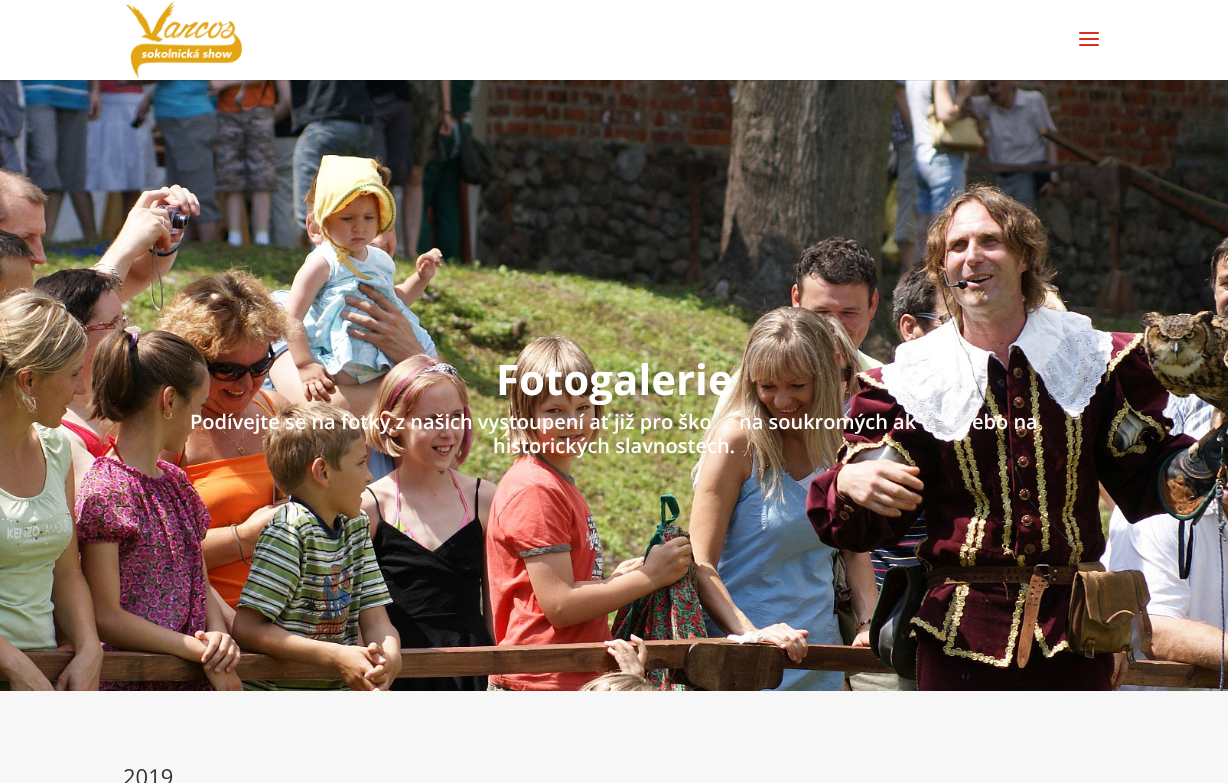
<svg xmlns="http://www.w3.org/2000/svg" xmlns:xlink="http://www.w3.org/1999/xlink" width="1228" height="783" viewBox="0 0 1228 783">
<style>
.cls-1{font:bold 42px Open Sans;fill:#ffffff}
.cls-2{font:600 20px Open Sans;fill:#ffffff}
.cls-3{font:22px Open Sans;fill:#333333}
</style>
<defs>
<linearGradient id="g1" gradientUnits="userSpaceOnUse" x1="614" y1="691" x2="614" y2="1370"><stop offset="0" stop-color="#f7f7f7"/><stop offset="1" stop-color="#ffffff"/></linearGradient>
</defs>
<rect width="100%" height="100%" fill="#ffffff"/>
<image xlink:href="image2.png" x="0" y="80" width="1228" height="611"/>
<rect fill="#000000" fill-opacity="0.1" x="0" y="80" width="1228" height="1"/>
<image xlink:href="image0.png" x="126" y="1" width="116" height="78"/>
<image xlink:href="image1.png" x="1079" y="32" width="20" height="14"/>
<rect fill="url(#g1)" x="0" y="691" width="1228" height="92"/>
<text class="cls-1" x="496" y="395">Fotogalerie</text>
<text class="cls-2" x="190" y="429">Podívejte se na fotky z našich vystoupení ať již pro ško</text>
<text class="cls-2" x="739" y="429">na soukromých ak</text>
<text class="cls-2" x="972" y="429">ebo na</text>
<text class="cls-2" x="493" y="453">historických slavnostech.</text>
<text class="cls-3" x="123" y="785">2019</text>
</svg>
